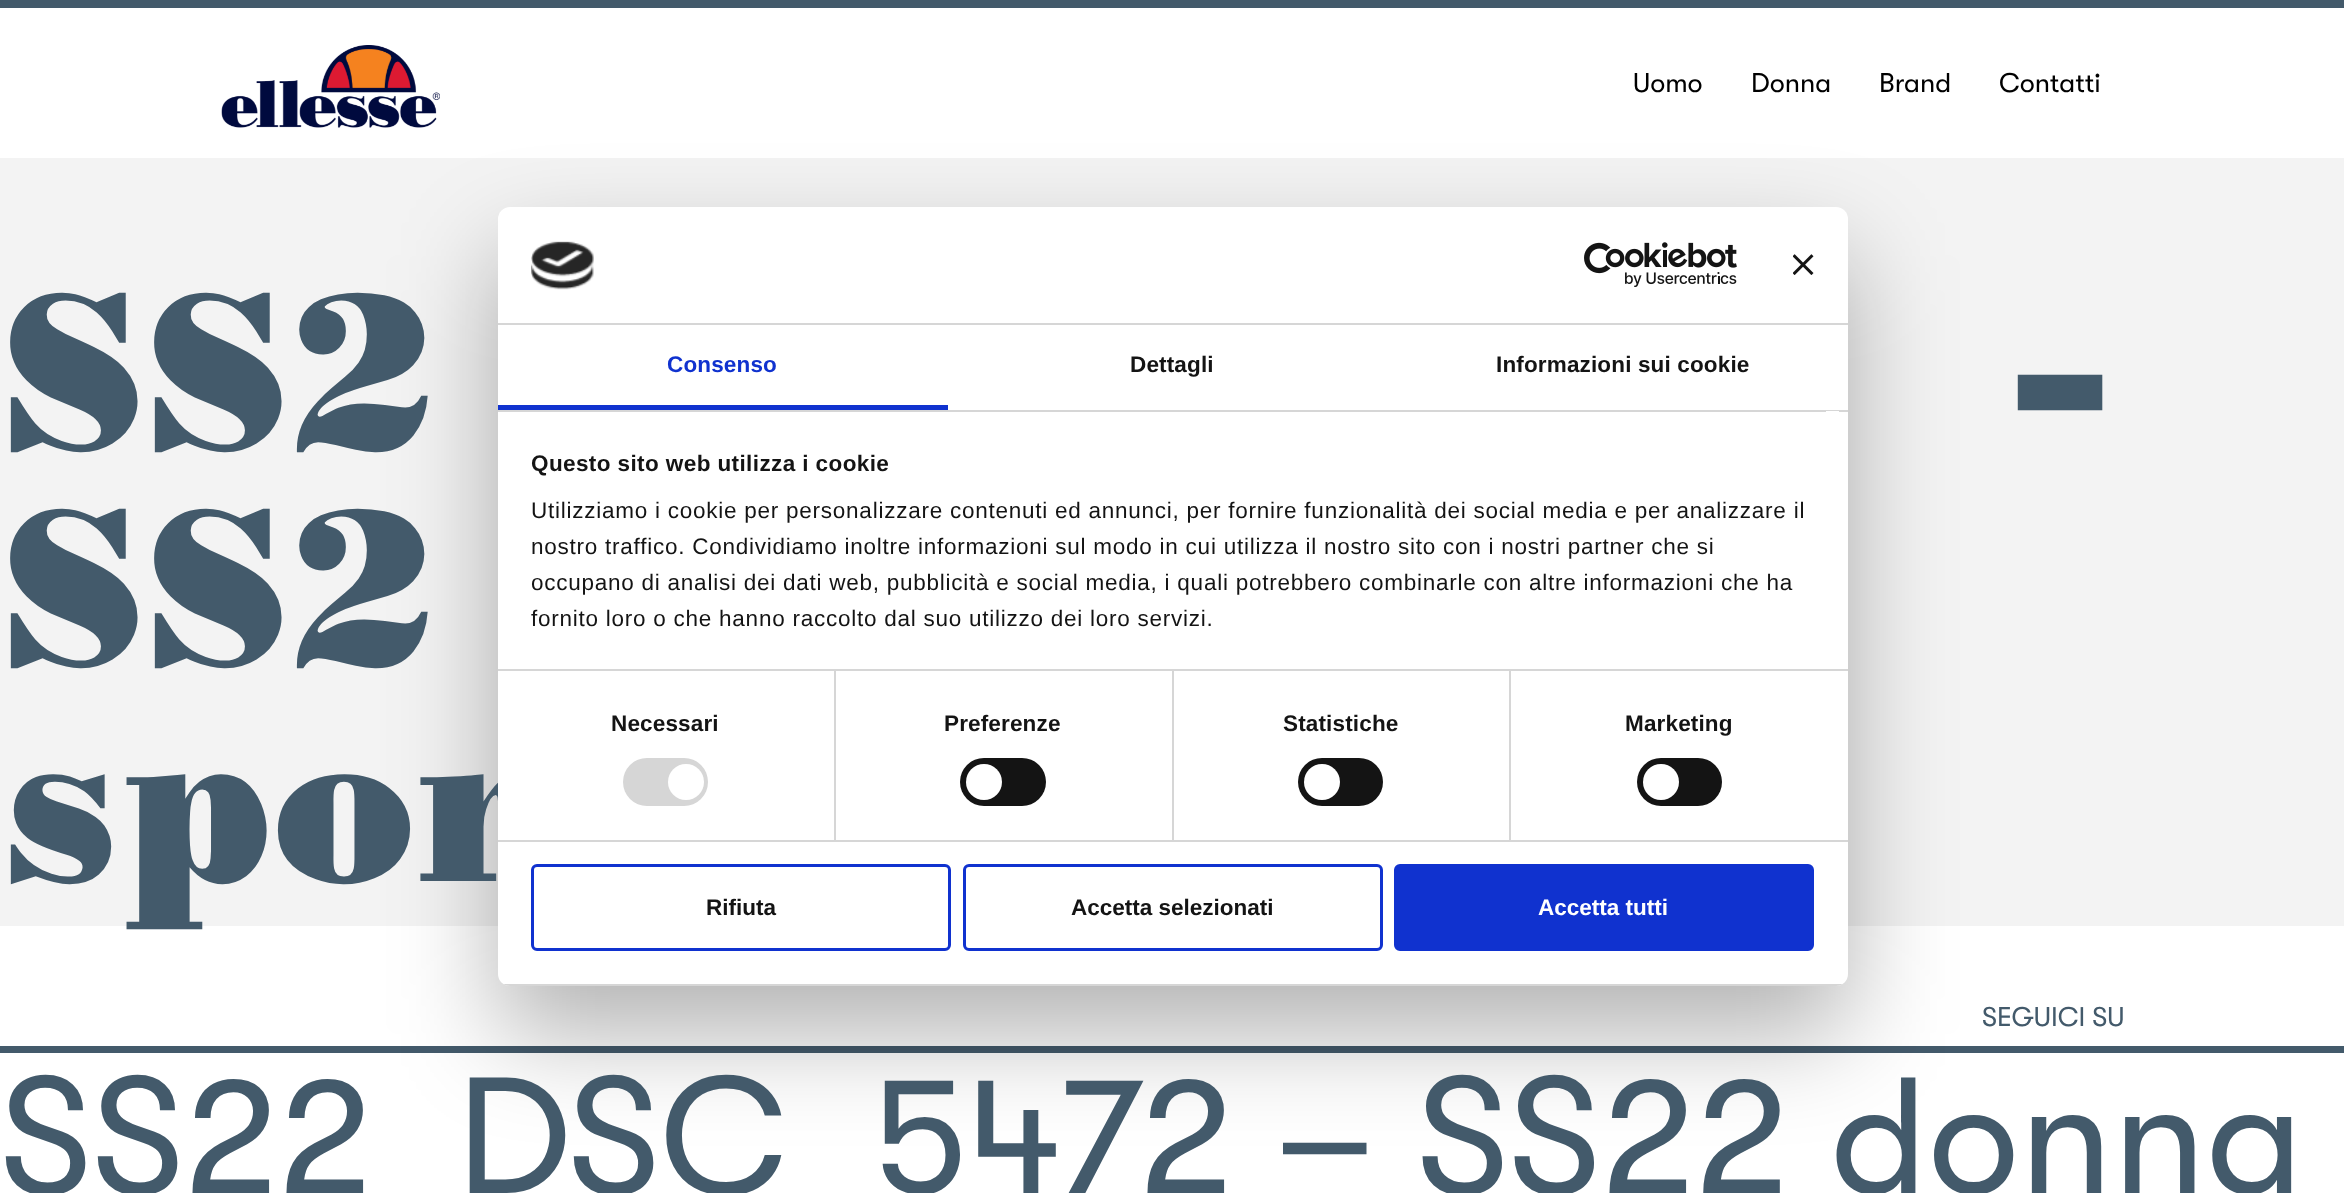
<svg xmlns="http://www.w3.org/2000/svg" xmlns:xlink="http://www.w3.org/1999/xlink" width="2344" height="1193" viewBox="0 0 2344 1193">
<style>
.cls-1{font:27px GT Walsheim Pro;fill:#000000}
.cls-2{font:bold 216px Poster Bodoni;fill:#435a6b}
.cls-3{font:165px GT Walsheim Pro;fill:#435a6b}
.cls-4{font:bold 22.5px Liberation Sans;letter-spacing:0.15px;fill:#1032cf}
.cls-5{font:bold 22.5px Liberation Sans;letter-spacing:0.15px;fill:#141414}
.cls-6{font:bold 22.5px Liberation Sans;letter-spacing:0.4px;fill:#141414}
.cls-7{font:22.5px Liberation Sans;letter-spacing:0.75px;fill:#141414}
.cls-8{font:bold 22.5px Liberation Sans;fill:#141414}
.cls-9{font:bold 22.5px Liberation Sans;fill:#ffffff}
.cls-10{font:27px GT Walsheim Pro;fill:#435a6b}
</style>
<defs>
<clipPath id="clip1"><rect x="498" y="207" width="1350" height="779" rx="12"/></clipPath>
</defs>
<rect width="100%" height="100%" fill="#f3f3f3"/>
<rect fill="#ffffff" x="0" y="8" width="2344" height="150"/>
<rect fill="#435a6b" x="0" y="0" width="2344" height="8"/>
<image xlink:href="image0.png" x="221" y="45" width="219" height="83"/>
<rect fill="#ffffff" x="0" y="1053" width="2344" height="140"/>
<rect fill="#435a6b" x="0" y="1046" width="2344" height="7"/>
<rect fill="#ffffff" x="0" y="926" width="2344" height="120"/>
<rect fill="#000000" fill-opacity="0.3" filter="blur(51px)" x="498" y="255" width="1350" height="779" rx="12"/>
<text class="cls-1" x="1633" y="92">Uomo</text>
<text class="cls-1" x="1751" y="92">Donna</text>
<text class="cls-1" x="1879" y="92">Brand</text>
<text class="cls-1" x="1999" y="92">Contatti</text>
<text class="cls-2" x="0" y="449">SS2</text>
<text class="cls-2" x="2012" y="449">–</text>
<text class="cls-2"><tspan x="0" y="665">SS2</tspan><tspan x="0" y="881">spor</tspan></text>
<text class="cls-3" x="0" y="1193">SS22_DSC_5472 – SS22 donna</text>
<rect fill="#ffffff" x="498" y="207" width="1350" height="779" rx="12"/>
<rect fill="#d6d6d6" x="498" y="323" width="1350" height="2"/>
<image xlink:href="image1.png" x="531" y="241" width="63" height="49"/>
<image xlink:href="image2.png" x="1584" y="242" width="153" height="45"/>
<image xlink:href="image3.png" x="1793" y="254" width="21" height="21"/>
<rect fill="#d6d6d6" x="498" y="410" width="1350" height="2"/>
<rect fill="#1032cf" x="498" y="405" width="450" height="5"/>
<text class="cls-4" x="667" y="372">Consenso</text>
<text class="cls-5" x="1130" y="372">Dettagli</text>
<text class="cls-5" x="1496" y="372">Informazioni sui cookie</text>
<rect fill="#d6d6d6" x="498" y="669" width="1350" height="2"/>
<rect fill="#ffffff" x="1826" y="411" width="13" height="1"/>
<text class="cls-6" x="531" y="471">Questo sito web utilizza i cookie</text>
<text class="cls-7"><tspan x="531" y="518">Utilizziamo i cookie per personalizzare contenuti ed annunci, per fornire funzionalità dei social media e per analizzare il</tspan><tspan x="531" y="554">nostro traffico. Condividiamo inoltre informazioni sul modo in cui utilizza il nostro sito con i nostri partner che si</tspan><tspan x="531" y="590">occupano di analisi dei dati web, pubblicità e social media, i quali potrebbero combinarle con altre informazioni che ha</tspan><tspan x="531" y="626">fornito loro o che hanno raccolto dal suo utilizzo dei loro servizi.</tspan></text>
<rect fill="#d6d6d6" x="498" y="840" width="1350" height="2"/>
<rect fill="#d6d6d6" x="834" y="671" width="2" height="169"/>
<text class="cls-5" x="611" y="731">Necessari</text>
<rect fill="#d6d6d6" x="623" y="758" width="85" height="48" rx="24"/>
<circle fill="#ffffff" cx="686" cy="782" r="18"/>
<rect fill="#d6d6d6" x="1172" y="671" width="2" height="169"/>
<text class="cls-5" x="944" y="731">Preferenze</text>
<rect fill="#141414" x="960" y="758" width="86" height="48" rx="24"/>
<circle fill="#ffffff" cx="984" cy="782" r="18"/>
<rect fill="#d6d6d6" x="1509" y="671" width="2" height="169"/>
<text class="cls-5" x="1283" y="731">Statistiche</text>
<rect fill="#141414" x="1298" y="758" width="85" height="48" rx="24"/>
<circle fill="#ffffff" cx="1322" cy="782" r="18"/>
<text class="cls-5" x="1625" y="731">Marketing</text>
<rect fill="#141414" x="1637" y="758" width="85" height="48" rx="24"/>
<circle fill="#ffffff" cx="1661" cy="782" r="18"/>
<g clip-path="url(#clip1)">
<rect fill="#d6d6d6" x="498" y="984" width="1350" height="2"/>
</g>
<rect fill="none" stroke="#1032cf" stroke-width="3" x="532.5" y="865.5" width="417" height="84" rx="4.5"/>
<text class="cls-8" x="706" y="915">Rifiuta</text>
<rect fill="none" stroke="#1032cf" stroke-width="3" x="964.5" y="865.5" width="417" height="84" rx="4.5"/>
<text class="cls-8" x="1071" y="915">Accetta selezionati</text>
<rect fill="#1032cf" stroke="#1032cf" stroke-width="3" x="1395.5" y="865.5" width="417" height="84" rx="4.5"/>
<text class="cls-9" x="1538" y="915">Accetta tutti</text>
<text class="cls-10" x="1982" y="1026">SEGUICI SU</text>
</svg>
